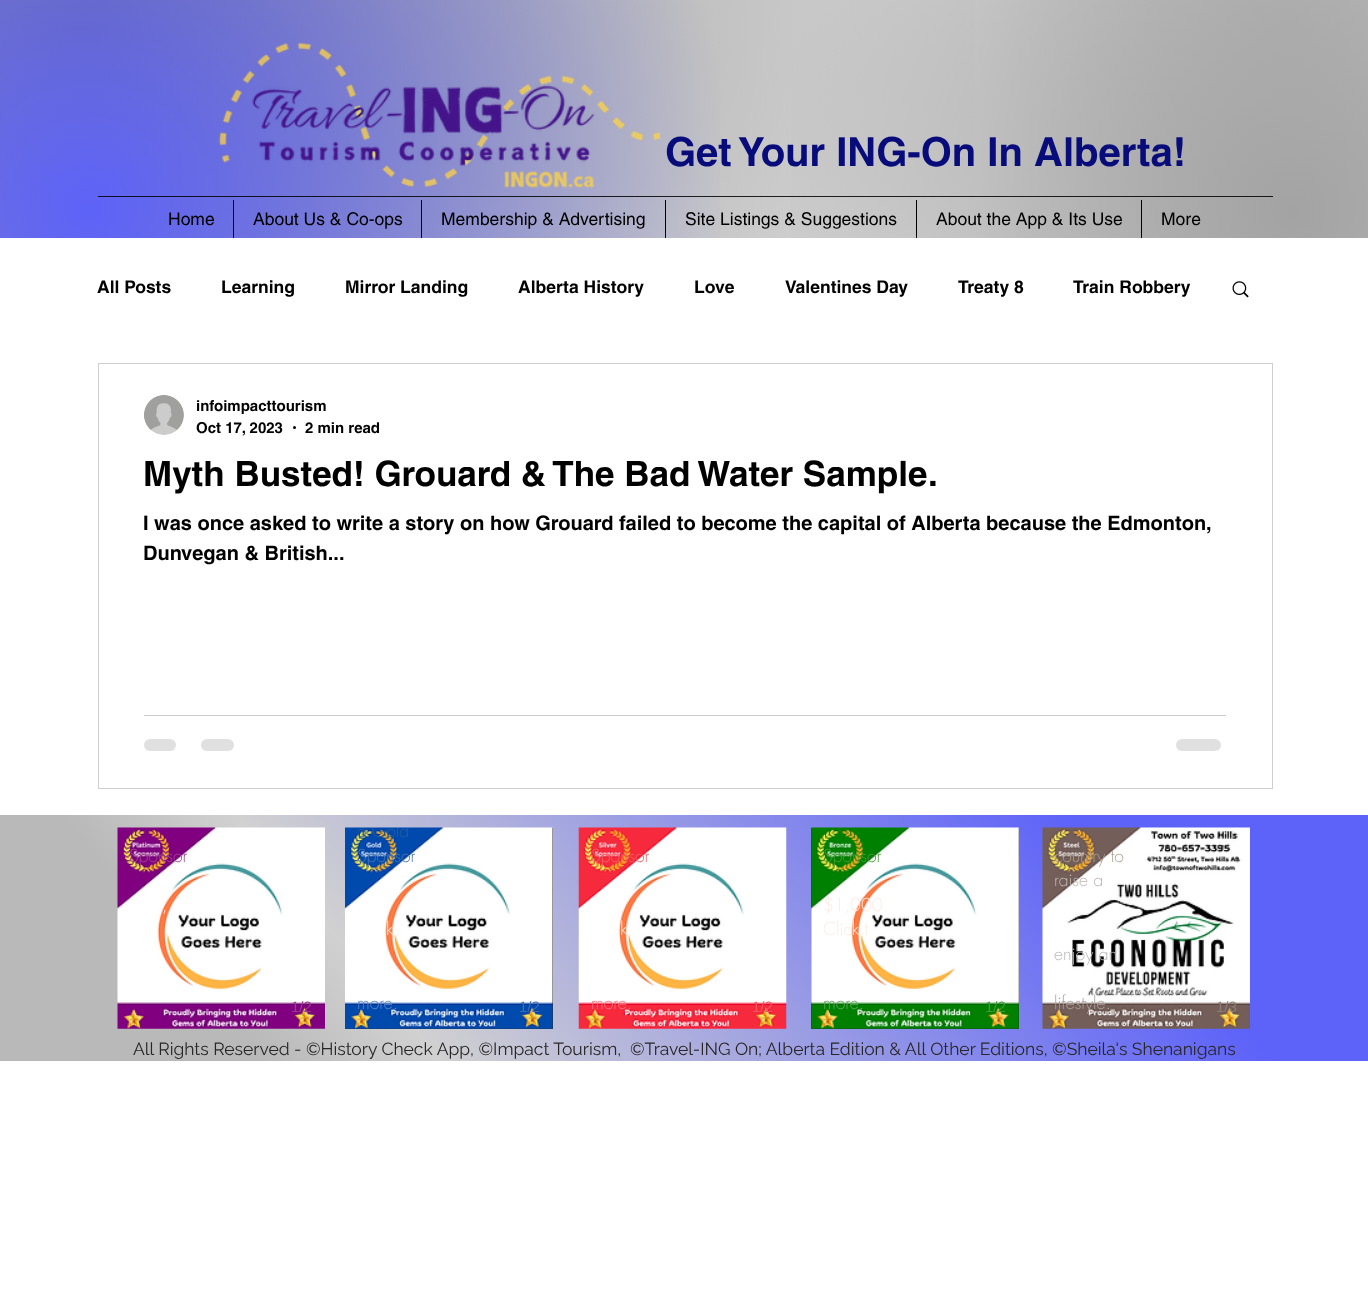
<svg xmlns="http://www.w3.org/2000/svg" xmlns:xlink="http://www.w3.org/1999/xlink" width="1368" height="1313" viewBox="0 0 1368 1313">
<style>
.cls-1{font:bold 40px helvetica;fill:#080c7b}
.cls-2{font:17.5px helvetica;fill:#000000}
.cls-3{font:bold 17.5px helvetica;fill:#000000}
.cls-4{font:bold 15px helvetica;fill:#000000}
.cls-5{font:bold 35px helvetica;fill:#000000}
.cls-6{font:bold 20px helvetica;fill:#000000}
.cls-7{font:300 17.5px futura;fill:#a14590}
.cls-8{font:300 17.5px futura;fill:#feebe3}
.cls-9{font:15px Liberation Sans;fill:#993a93}
.cls-10{font:300 17.5px futura;fill:#2a5e97}
.cls-11{font:300 17.5px futura;fill:#4977b3}
.cls-12{font:300 17.5px futura;fill:#5d87c7}
.cls-13{font:15px Liberation Sans;fill:#3c6db3}
.cls-14{font:300 17.5px futura;fill:#f66162}
.cls-15{font:300 17.5px futura;fill:#f77281}
.cls-16{font:15px Liberation Sans;fill:#f55560}
.cls-17{font:300 17.5px futura;fill:#4a9d37}
.cls-18{font:300 17.5px futura;fill:#5ca95c}
.cls-19{font:15px Liberation Sans;fill:#409a39}
.cls-20{font:300 17.5px futura;fill:#b19f8d}
.cls-21{font:300 17.5px futura;fill:#bfb6b3}
.cls-22{font:300 17.5px futura;fill:#b9b9b9}
.cls-23{font:300 17.5px futura;fill:#aba09d}
.cls-24{font:15px Liberation Sans;fill:#8f7d75}
.cls-25{font:17.5px Raleway;fill:#282626}
</style>
<defs>
<radialGradient id="g1" gradientUnits="userSpaceOnUse" cx="1282" cy="27" r="1299"><stop offset="0" stop-color="#b9b9b9"/><stop offset="0.7" stop-color="#ffffff"/></radialGradient>
<radialGradient id="g2" gradientUnits="userSpaceOnUse" cx="84" cy="30" r="1301"><stop offset="0" stop-color="#757575"/><stop offset="0.7" stop-color="#757575" stop-opacity="0"/></radialGradient>
<radialGradient id="g3" gradientUnits="userSpaceOnUse" cx="89" cy="209" r="1297"><stop offset="0" stop-color="#5d62f9" stop-opacity="0.99"/><stop offset="0.5" stop-color="#5d62f9" stop-opacity="0"/></radialGradient>
<radialGradient id="g4" gradientUnits="userSpaceOnUse" cx="1291" cy="213" r="1309"><stop offset="0" stop-color="#a3a3a3"/><stop offset="0.4" stop-color="#a3a3a3" stop-opacity="0"/></radialGradient>
<linearGradient id="g5" gradientUnits="userSpaceOnUse" x1="216" y1="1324" x2="1152" y2="552"><stop offset="0.17" stop-color="#b9b9b9"/><stop offset="0.28" stop-color="#d1d1d1"/><stop offset="0.81" stop-color="#5d62f9"/></linearGradient>
<clipPath id="clip1"><rect x="358" y="828" width="70" height="188"/></clipPath>
<clipPath id="clip2"><rect x="824" y="828" width="70" height="188"/></clipPath>
</defs>
<rect width="100%" height="100%" fill="#ffffff"/>
<rect fill="url(#g1)" x="403" y="0" width="965" height="238"/>
<rect fill="url(#g2)" x="0" y="0" width="975" height="238"/>
<rect fill="url(#g3)" x="0" y="0" width="720" height="238"/>
<rect fill="url(#g4)" x="791" y="0" width="577" height="238"/>
<image xlink:href="image0.png" x="218" y="42" width="442" height="146"/>
<rect fill="#000000" fill-opacity="0.85" x="98" y="196" width="1175" height="1"/>
<rect fill="#000000" x="233" y="200" width="1" height="38"/>
<rect fill="#000000" x="421" y="200" width="1" height="38"/>
<rect fill="#000000" x="665" y="200" width="1" height="38"/>
<rect fill="#000000" x="916" y="200" width="1" height="38"/>
<rect fill="#000000" x="1141" y="200" width="1" height="38"/>
<image xlink:href="image1.png" x="1232" y="281" width="17" height="17"/>
<rect fill="none" stroke="#cfcfcf" x="98.5" y="363.5" width="1174" height="425"/>
<image xlink:href="image2.png" x="144" y="395" width="40" height="40"/>
<circle fill="#000000" cx="294.5" cy="427.5" r="1.5"/>
<rect fill="#cccccc" x="144" y="715" width="1082" height="1"/>
<rect fill="#e0e0e0" x="144" y="739" width="32" height="12" rx="6"/>
<rect fill="#e0e0e0" x="201" y="739" width="33" height="12" rx="6"/>
<rect fill="#e0e0e0" x="1176" y="739" width="45" height="12" rx="6"/>
<rect fill="url(#g5)" x="0" y="815" width="1368" height="246"/>
<image xlink:href="image3.png" x="117" y="827" width="208" height="202"/>
<rect fill="#2f2e2e" x="345" y="828" width="208" height="201"/>
<image xlink:href="image4.png" x="345" y="827" width="208" height="202"/>
<image xlink:href="image5.png" x="578" y="827" width="209" height="202"/>
<rect fill="#2f2e2e" x="811" y="828" width="208" height="201"/>
<image xlink:href="image6.png" x="811" y="827" width="208" height="202"/>
<image xlink:href="image7.png" x="1042" y="827" width="208" height="202"/>
<text class="cls-1" x="665" y="166">Get Your ING-On In Alberta!</text>
<text class="cls-2" x="168" y="225">Home</text>
<text class="cls-2" x="253" y="225">About Us &amp; Co-ops</text>
<text class="cls-2" x="441" y="225">Membership &amp; Advertising</text>
<text class="cls-2" x="685" y="225">Site Listings &amp; Suggestions</text>
<text class="cls-2" x="936" y="225">About the App &amp; Its Use</text>
<text class="cls-2" x="1161" y="225">More</text>
<text class="cls-3" x="97" y="293">All Posts</text>
<text class="cls-3" x="221" y="293">Learning</text>
<text class="cls-3" x="345" y="293">Mirror Landing</text>
<text class="cls-3" x="518" y="293">Alberta History</text>
<text class="cls-3" x="694" y="293">Love</text>
<text class="cls-3" x="785" y="293">Valentines Day</text>
<text class="cls-3" x="958" y="293">Treaty 8</text>
<text class="cls-3" x="1073" y="293">Train Robbery</text>
<text class="cls-4"><tspan x="196" y="411">infoimpacttourism</tspan><tspan x="196" y="433">Oct 17, 2023</tspan></text>
<text class="cls-4" x="305" y="433">2 min read</text>
<text class="cls-5" x="143" y="486">Myth Busted! Grouard &amp; The Bad Water Sample.</text>
<text class="cls-6"><tspan x="143" y="530">I was once asked to write a story on how Grouard failed to become the capital of Alberta because the Edmonton,</tspan><tspan x="143" y="560">Dunvegan &amp; British...</tspan></text>
<text class="cls-7" x="129" y="862">Sponsor</text>
<text class="cls-8" x="162" y="911">,</text>
<text class="cls-9" x="291" y="1012">1/2</text>
<g clip-path="url(#clip1)">
<text class="cls-10" x="357" y="837">a Gold</text>
</g>
<text class="cls-11" x="357" y="862">Sponsor</text>
<text class="cls-8" x="386" y="935">k</text>
<text class="cls-12" x="357" y="1009">more.</text>
<text class="cls-13" x="519" y="1012">1/2</text>
<text class="cls-14" x="591" y="862">Sponsor</text>
<text class="cls-8" x="620" y="935">k</text>
<text class="cls-15" x="591" y="1009">more.</text>
<text class="cls-16" x="752" y="1012">1/2</text>
<text class="cls-17" x="823" y="862">Sponsor</text>
<text class="cls-8" x="823" y="911">$1,000.</text>
<g clip-path="url(#clip2)">
<text class="cls-8" x="823" y="935">Click t</text>
</g>
<text class="cls-18" x="823" y="1009">more.</text>
<text class="cls-19" x="985" y="1012">1/2</text>
<text class="cls-20" x="1054" y="862">country to</text>
<text class="cls-21" x="1054" y="886">raise a</text>
<text class="cls-22" x="1054" y="960">enjoy an</text>
<text class="cls-23" x="1054" y="1009">lifestyle.</text>
<text class="cls-24" x="1216" y="1012">1/3</text>
<text class="cls-25" x="133" y="1055">All Rights Reserved - ©History Check App, ©Impact Tourism,</text>
<text class="cls-25" x="630" y="1055">©Travel-ING On; Alberta Edition &amp; All Other Editions, ©Sheila's Shenanigans</text>
</svg>
